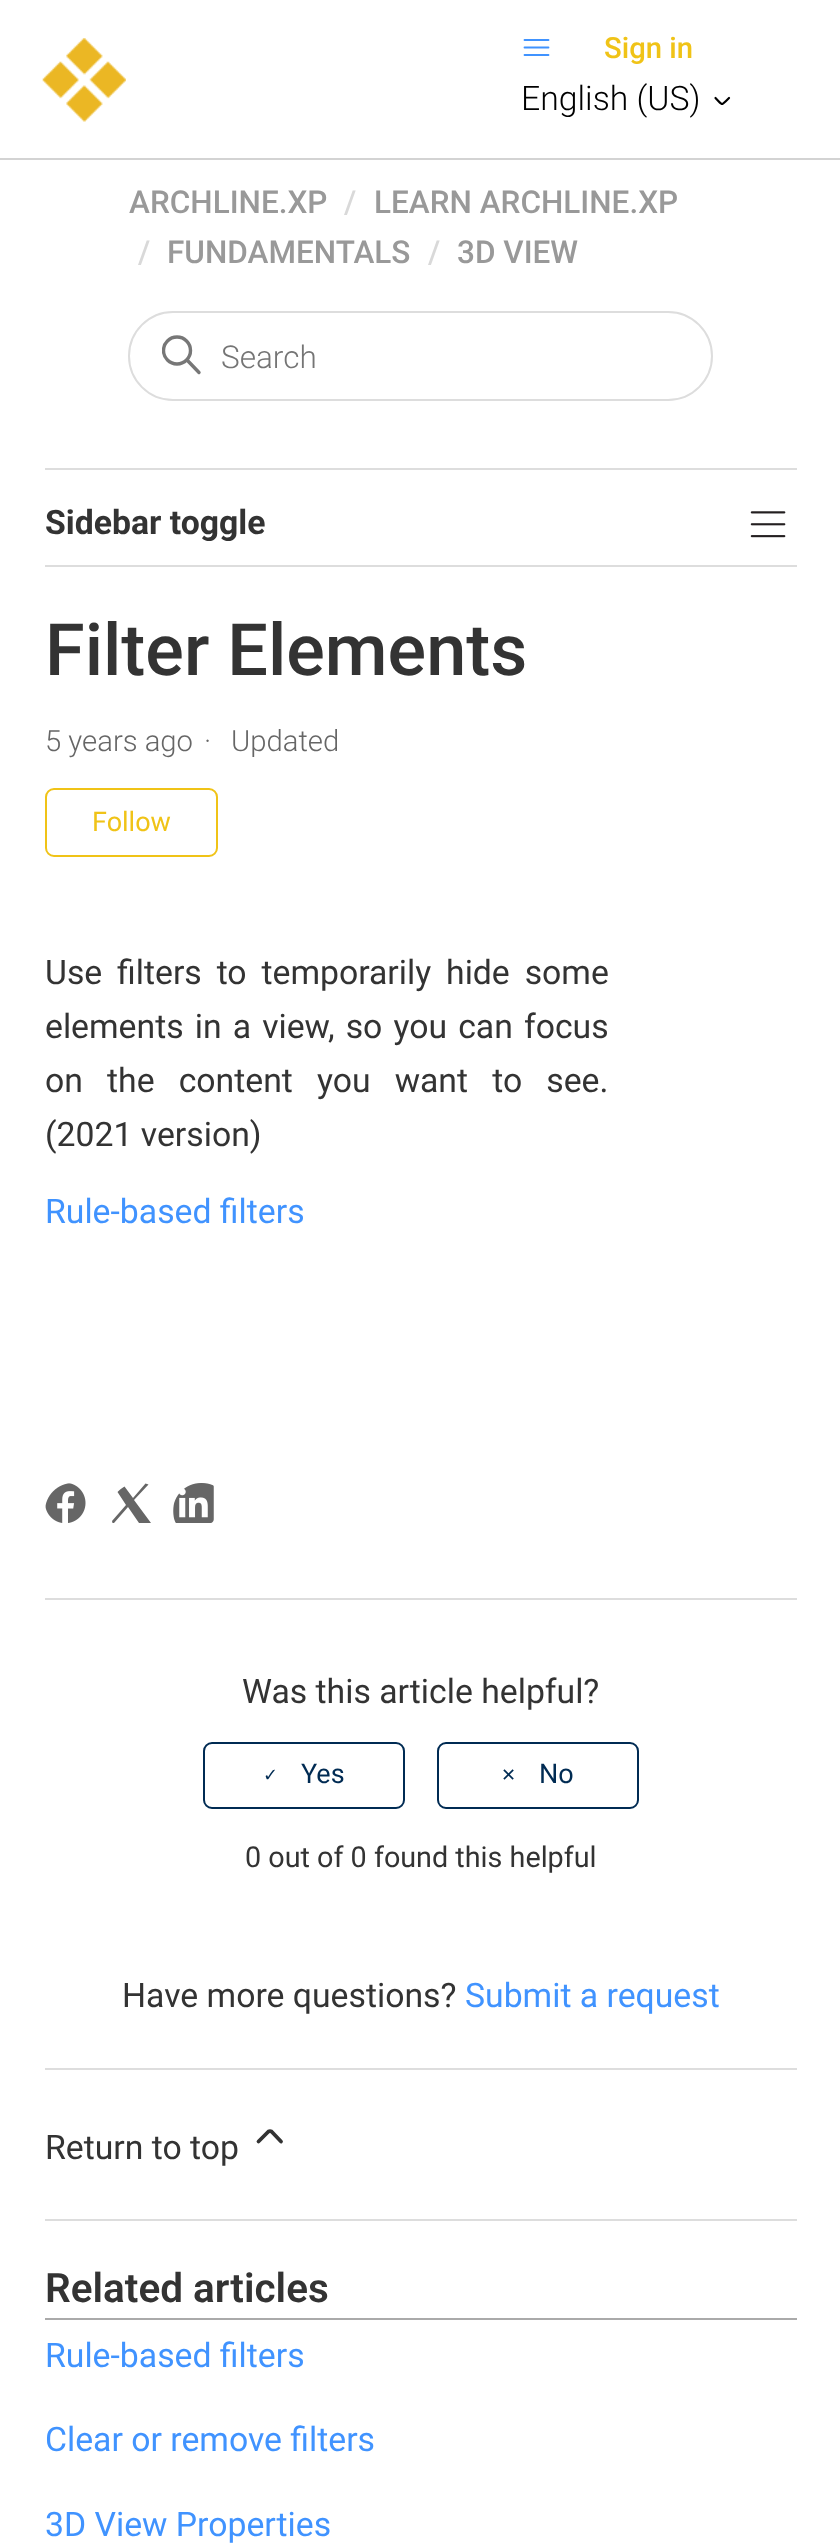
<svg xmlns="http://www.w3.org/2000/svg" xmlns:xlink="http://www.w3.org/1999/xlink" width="840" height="2546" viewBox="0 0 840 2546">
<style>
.cls-1{font:500 29.25px Roboto;fill:#f0c317}
.cls-2{font:300 33.75px Roboto;fill:#000000}
.cls-3{font:500 31.5px Roboto;fill:#999999}
.cls-4{font:500 31.5px Roboto;fill:#d9d9d9}
.cls-5{font:300 31.5px Roboto;fill:#757575}
.cls-6{font:bold 33.75px Roboto;fill:#333333}
.cls-7{font:500 72px Roboto;fill:#333333}
.cls-8{font:300 29.25px Roboto;fill:#666666}
.cls-9{font:27px Roboto;fill:#f0c317}
.cls-10{font:33.75px Roboto;fill:#333333}
.cls-11{font:33.75px Roboto;fill:#4093ff}
.cls-12{font:18px DejaVu Sans;fill:#002b53}
.cls-13{font:27px Roboto;fill:#002b53}
.cls-14{font:28.75px Roboto;fill:#333333}
.cls-15{font:600 40.5px Roboto;fill:#333333}
</style>
<defs>
<clipPath id="clip1"><rect x="162" y="335" width="41" height="41"/></clipPath>
</defs>
<rect width="100%" height="100%" fill="#ffffff"/>
<rect fill="#d3d3d3" x="0" y="158" width="840" height="2"/>
<image xlink:href="image0.png" x="42" y="38" width="84" height="84"/>
<path fill="none" stroke="#4093ff" stroke-width="1.8" stroke-linecap="round" d="M524.5 40H548.5M524.5 47.5H548.5M524.5 55H548.5"/>
<path fill="none" stroke="#000000" stroke-width="2.2" stroke-linecap="round" d="M715.5 98C723.5 106 720.5 106 729 98"/>
<rect fill="none" stroke="#dddddd" stroke-width="2" x="129" y="312" width="583" height="88" rx="44"/>
<g clip-path="url(#clip1)">
<circle fill="none" stroke="#777777" stroke-width="3.4" cx="177" cy="350.5" r="13.5"/>
</g>
<path fill="none" stroke="#777777" stroke-width="3.4" stroke-linecap="round" d="M199 372.5L187.5 360.5"/>
<rect fill="#dddddd" x="45" y="468" width="752" height="2"/>
<rect fill="#dddddd" x="45" y="565" width="752" height="2"/>
<image xlink:href="image1.png" x="750" y="511" width="36" height="27"/>
<rect fill="none" stroke="#f0c317" stroke-width="2" x="46" y="789" width="171" height="67" rx="8"/>
<image xlink:href="image2.png" x="45" y="1483" width="41" height="40"/>
<path fill="#666666" d="M112 1521L126 1505L117.5 1492C119.5 1490 122 1488 124.5 1486.5L133 1498L145.5 1483.5L148.5 1484.5L134 1500L151 1523H139L128 1507L114 1523H112.5Z"/>
<image xlink:href="image3.png" x="173" y="1483" width="41" height="40"/>
<rect fill="#dddddd" x="45" y="1598" width="752" height="2"/>
<rect fill="none" stroke="#002b53" stroke-width="2" x="204" y="1743" width="200" height="65" rx="8"/>
<rect fill="none" stroke="#002b53" stroke-width="2" x="438" y="1743" width="200" height="65" rx="8"/>
<rect fill="#dddddd" x="45" y="2068" width="752" height="2"/>
<path fill="none" stroke="#333333" stroke-width="3.8" stroke-linecap="round" d="M281 2141.5L271.5 2131.5C270.5 2131 269.5 2131 268.5 2131.5L258.5 2141.5"/>
<rect fill="#dddddd" x="45" y="2219" width="752" height="2"/>
<rect fill="#aaaaaa" x="45" y="2318" width="752" height="2"/>
<text class="cls-1" x="604" y="58">Sign in</text>
<text class="cls-2" x="521" y="110">English (US)</text>
<text class="cls-3" x="129" y="213">ARCHLINE.XP</text>
<text class="cls-4" x="344" y="213">/</text>
<text class="cls-3" x="374" y="213">LEARN ARCHLINE.XP</text>
<text class="cls-4" x="138" y="263">/</text>
<text class="cls-3" x="167" y="263">FUNDAMENTALS</text>
<text class="cls-4" x="428" y="263">/</text>
<text class="cls-3" x="457" y="263">3D VIEW</text>
<text class="cls-5" x="221" y="368">Search</text>
<text class="cls-6" x="45" y="534">Sidebar toggle</text>
<text class="cls-7" x="45" y="675">Filter Elements</text>
<text class="cls-8" x="45" y="751">5 years ago</text>
<text class="cls-8" x="204" y="751">·</text>
<text class="cls-8" x="231" y="751">Updated</text>
<text class="cls-9" x="92" y="831">Follow</text>
<text class="cls-10"><tspan x="45" y="984" word-spacing="6.5">Use filters to temporarily hide some</tspan><tspan x="45" y="1038" word-spacing="2.75">elements in a view, so you can focus</tspan><tspan x="45" y="1092" word-spacing="15.75">on the content you want to see.</tspan><tspan x="45" y="1146">(2021 version)</tspan></text>
<text class="cls-11" x="45" y="1223">Rule-based filters</text>
<text class="cls-10" x="242" y="1703">Was this article helpful?</text>
<text class="cls-12" x="263" y="1781">✓</text>
<text class="cls-13" x="301" y="1783">Yes</text>
<text class="cls-12" x="501" y="1781">✕</text>
<text class="cls-13" x="539" y="1783">No</text>
<text class="cls-14" x="245" y="1867">0 out of 0 found this helpful</text>
<text class="cls-10" x="122" y="2007">Have more questions?</text>
<text class="cls-11" x="465" y="2007">Submit a request</text>
<text class="cls-10" x="45" y="2159">Return to top</text>
<text class="cls-15" x="45" y="2302">Related articles</text>
<text class="cls-11" x="45" y="2367">Rule-based filters</text>
<text class="cls-11" x="45" y="2451">Clear or remove filters</text>
<text class="cls-11" x="45" y="2536">3D View Properties</text>
</svg>
